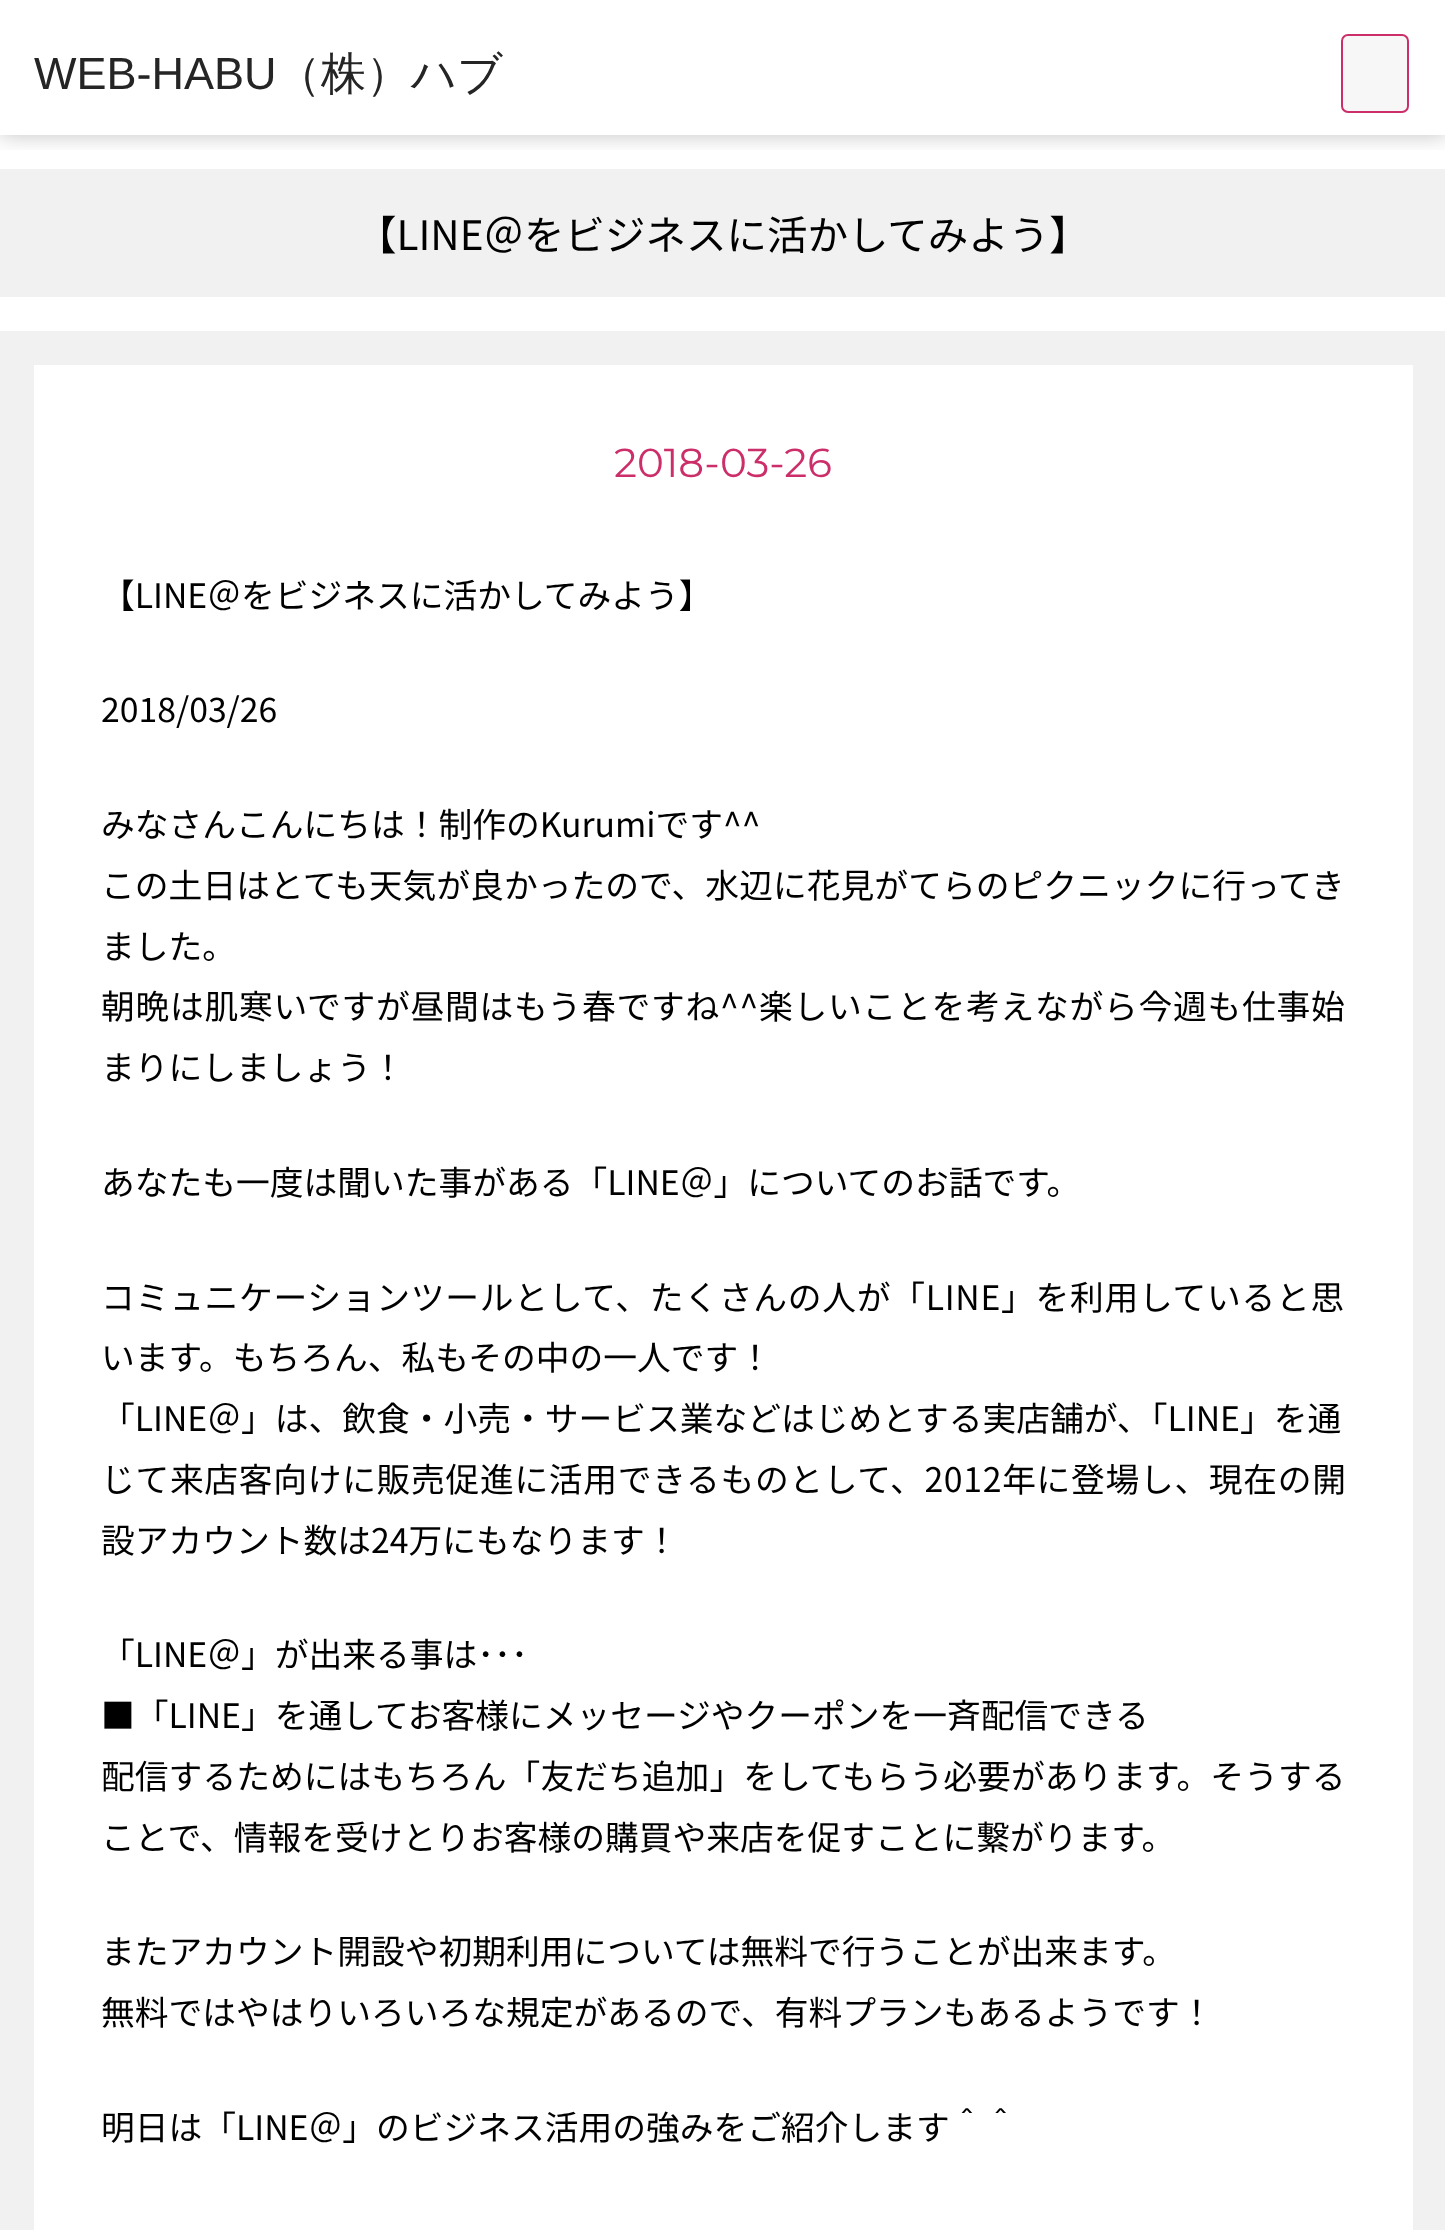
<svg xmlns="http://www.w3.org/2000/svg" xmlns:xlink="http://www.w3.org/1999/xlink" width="1445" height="2230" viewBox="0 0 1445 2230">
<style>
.cls-1{font:45px Liberation Sans;fill:#252525}
.cls-2{font:500 45px WenQuanYi Zen Hei;fill:#252525}
.cls-3{font:40.5px Noto Sans JP;fill:#000000}
.cls-4{font:40.5px Montserrat;fill:#cc2e6a}
.cls-5{font:33.75px Noto Sans JP;fill:#000000}
.cls-6{font:33.75px Noto Sans JP;letter-spacing:0.05px;fill:#000000}
.cls-7{font:33.75px Noto Sans JP;letter-spacing:0.75px;fill:#000000}
.cls-8{font:33.75px Noto Sans JP;letter-spacing:0.7px;fill:#000000}
</style>
<defs>
<clipPath id="clip1"><rect x="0" y="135" width="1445" height="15"/></clipPath>
</defs>
<rect width="100%" height="100%" fill="#ffffff"/>
<g clip-path="url(#clip1)">
<rect fill="#000000" fill-opacity="0.24" filter="blur(11px)" x="0" y="0" width="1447" height="135"/>
</g>
<rect fill="#f7f7f7" stroke="#cc2e6a" stroke-width="2" x="1342" y="35" width="66" height="77" rx="6"/>
<rect fill="#f1f1f1" x="0" y="169" width="1445" height="128"/>
<rect fill="#f1f1f1" x="0" y="331" width="1445" height="1899"/>
<rect fill="#ffffff" x="34" y="365" width="1379" height="1865"/>
<text class="cls-1" x="34" y="89">WEB-HABU</text>
<text class="cls-2" x="276" y="89">（株）ハブ</text>
<text class="cls-3" x="356" y="250">【LINE＠をビジネスに活かしてみよう】</text>
<text class="cls-4" x="614" y="477">2018-03-26</text>
<text class="cls-5" x="101" y="608">【LINE＠をビジネスに活かしてみよう】</text>
<text class="cls-5" x="101" y="722">2018/03/26</text>
<text class="cls-5" x="101" y="837">みなさんこんにちは！制作のKurumiです^^</text>
<text class="cls-6" x="101" y="898">この土日はとても天気が良かったので、水辺に花見がてらのピクニックに行ってき</text>
<text class="cls-5" x="101" y="959">ました。</text>
<text class="cls-7" x="101" y="1019">朝晩は肌寒いですが昼間はもう春ですね^^楽しいことを考えながら今週も仕事始</text>
<text class="cls-5" x="101" y="1080">まりにしましょう！</text>
<text class="cls-5" x="101" y="1195">あなたも一度は聞いた事がある「LINE＠」についてのお話です。</text>
<text class="cls-7" x="101" y="1310">コミュニケーションツールとして、たくさんの人が「LINE」を利用していると思</text>
<text class="cls-5"><tspan x="101" y="1370">います。もちろん、私もその中の一人です！</tspan><tspan x="101" y="1431">「LINE＠」は、飲食・小売・サービス業などはじめとする実店舗が、「LINE」を通</tspan></text>
<text class="cls-8" x="101" y="1492">じて来店客向けに販売促進に活用できるものとして、2012年に登場し、現在の開</text>
<text class="cls-5" x="101" y="1553">設アカウント数は24万にもなります！</text>
<text class="cls-5"><tspan x="101" y="1667">「LINE＠」が出来る事は･･･</tspan><tspan x="101" y="1728">■「LINE」を通してお客様にメッセージやクーポンを一斉配信できる</tspan></text>
<text class="cls-6" x="101" y="1789">配信するためにはもちろん「友だち追加」をしてもらう必要があります。そうする</text>
<text class="cls-5" x="101" y="1850">ことで、情報を受けとりお客様の購買や来店を促すことに繋がります。</text>
<text class="cls-5"><tspan x="101" y="1964">またアカウント開設や初期利用については無料で行うことが出来ます。</tspan><tspan x="101" y="2025">無料ではやはりいろいろな規定があるので、有料プランもあるようです！</tspan></text>
<text class="cls-5" x="101" y="2140">明日は「LINE＠」のビジネス活用の強みをご紹介します＾＾</text>
</svg>
